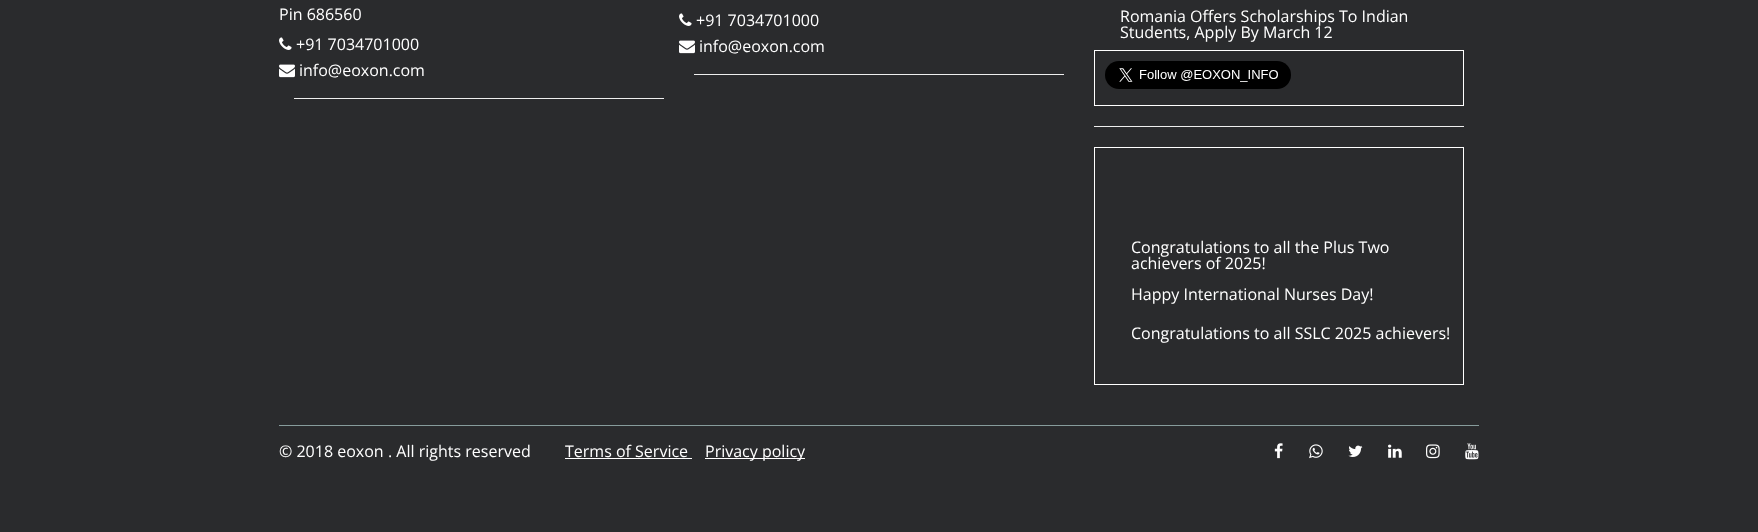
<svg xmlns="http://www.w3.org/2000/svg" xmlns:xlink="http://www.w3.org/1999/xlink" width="1758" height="532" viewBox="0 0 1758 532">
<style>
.cls-1{font:16px Open Sans;fill:#ffffff}
</style>
<rect width="100%" height="100%" fill="#2a2b2d"/>
<image xlink:href="image0.png" x="279" y="37" width="13" height="13"/>
<image xlink:href="image1.png" x="279" y="64" width="16" height="14"/>
<rect fill="#eeeeee" x="294" y="98" width="370" height="1"/>
<image xlink:href="image0.png" x="679" y="13" width="13" height="13"/>
<image xlink:href="image1.png" x="679" y="40" width="16" height="14"/>
<rect fill="#eeeeee" x="694" y="74" width="370" height="1"/>
<rect fill="none" stroke="#ffffff" x="1094.5" y="50.5" width="369" height="55"/>
<image xlink:href="image2.png" x="1105" y="61" width="186" height="28"/>
<rect fill="#eeeeee" x="1094" y="126" width="370" height="1"/>
<rect fill="none" stroke="#ffffff" x="1094.5" y="147.5" width="369" height="237"/>
<rect fill="#879c9c" x="279" y="425" width="1200" height="1"/>
<rect fill="#ffffff" x="565" y="458" width="127" height="1"/>
<rect fill="#ffffff" x="705" y="458" width="100" height="1"/>
<image xlink:href="image3.png" x="1274" y="443" width="9" height="16"/>
<image xlink:href="image4.png" x="1309" y="444" width="14" height="15"/>
<image xlink:href="image5.png" x="1348" y="445" width="15" height="12"/>
<image xlink:href="image6.png" x="1388" y="444" width="14" height="14"/>
<image xlink:href="image7.png" x="1426" y="444" width="14" height="15"/>
<image xlink:href="image8.png" x="1465" y="443" width="14" height="17"/>
<text class="cls-1" x="279" y="20">Pin 686560</text>
<text class="cls-1" x="296" y="50">+91 7034701000</text>
<text class="cls-1" x="299" y="76">info@eoxon.com</text>
<text class="cls-1" x="696" y="26">+91 7034701000</text>
<text class="cls-1" x="699" y="52">info@eoxon.com</text>
<text class="cls-1"><tspan x="1120" y="22">Romania Offers Scholarships To Indian</tspan><tspan x="1120" y="38">Students, Apply By March 12</tspan></text>
<text class="cls-1"><tspan x="1131" y="253">Congratulations to all the Plus Two</tspan><tspan x="1131" y="269">achievers of 2025!</tspan><tspan x="1131" y="300">Happy International Nurses Day!</tspan></text>
<text class="cls-1" x="1131" y="339">Congratulations to all SSLC 2025 achievers!</text>
<text class="cls-1" x="279" y="457">© 2018 eoxon</text>
<text class="cls-1" x="388" y="457">. All rights reserved</text>
<text class="cls-1" x="565" y="457">Terms of Service</text>
<text class="cls-1" x="705" y="457">Privacy policy</text>
</svg>
